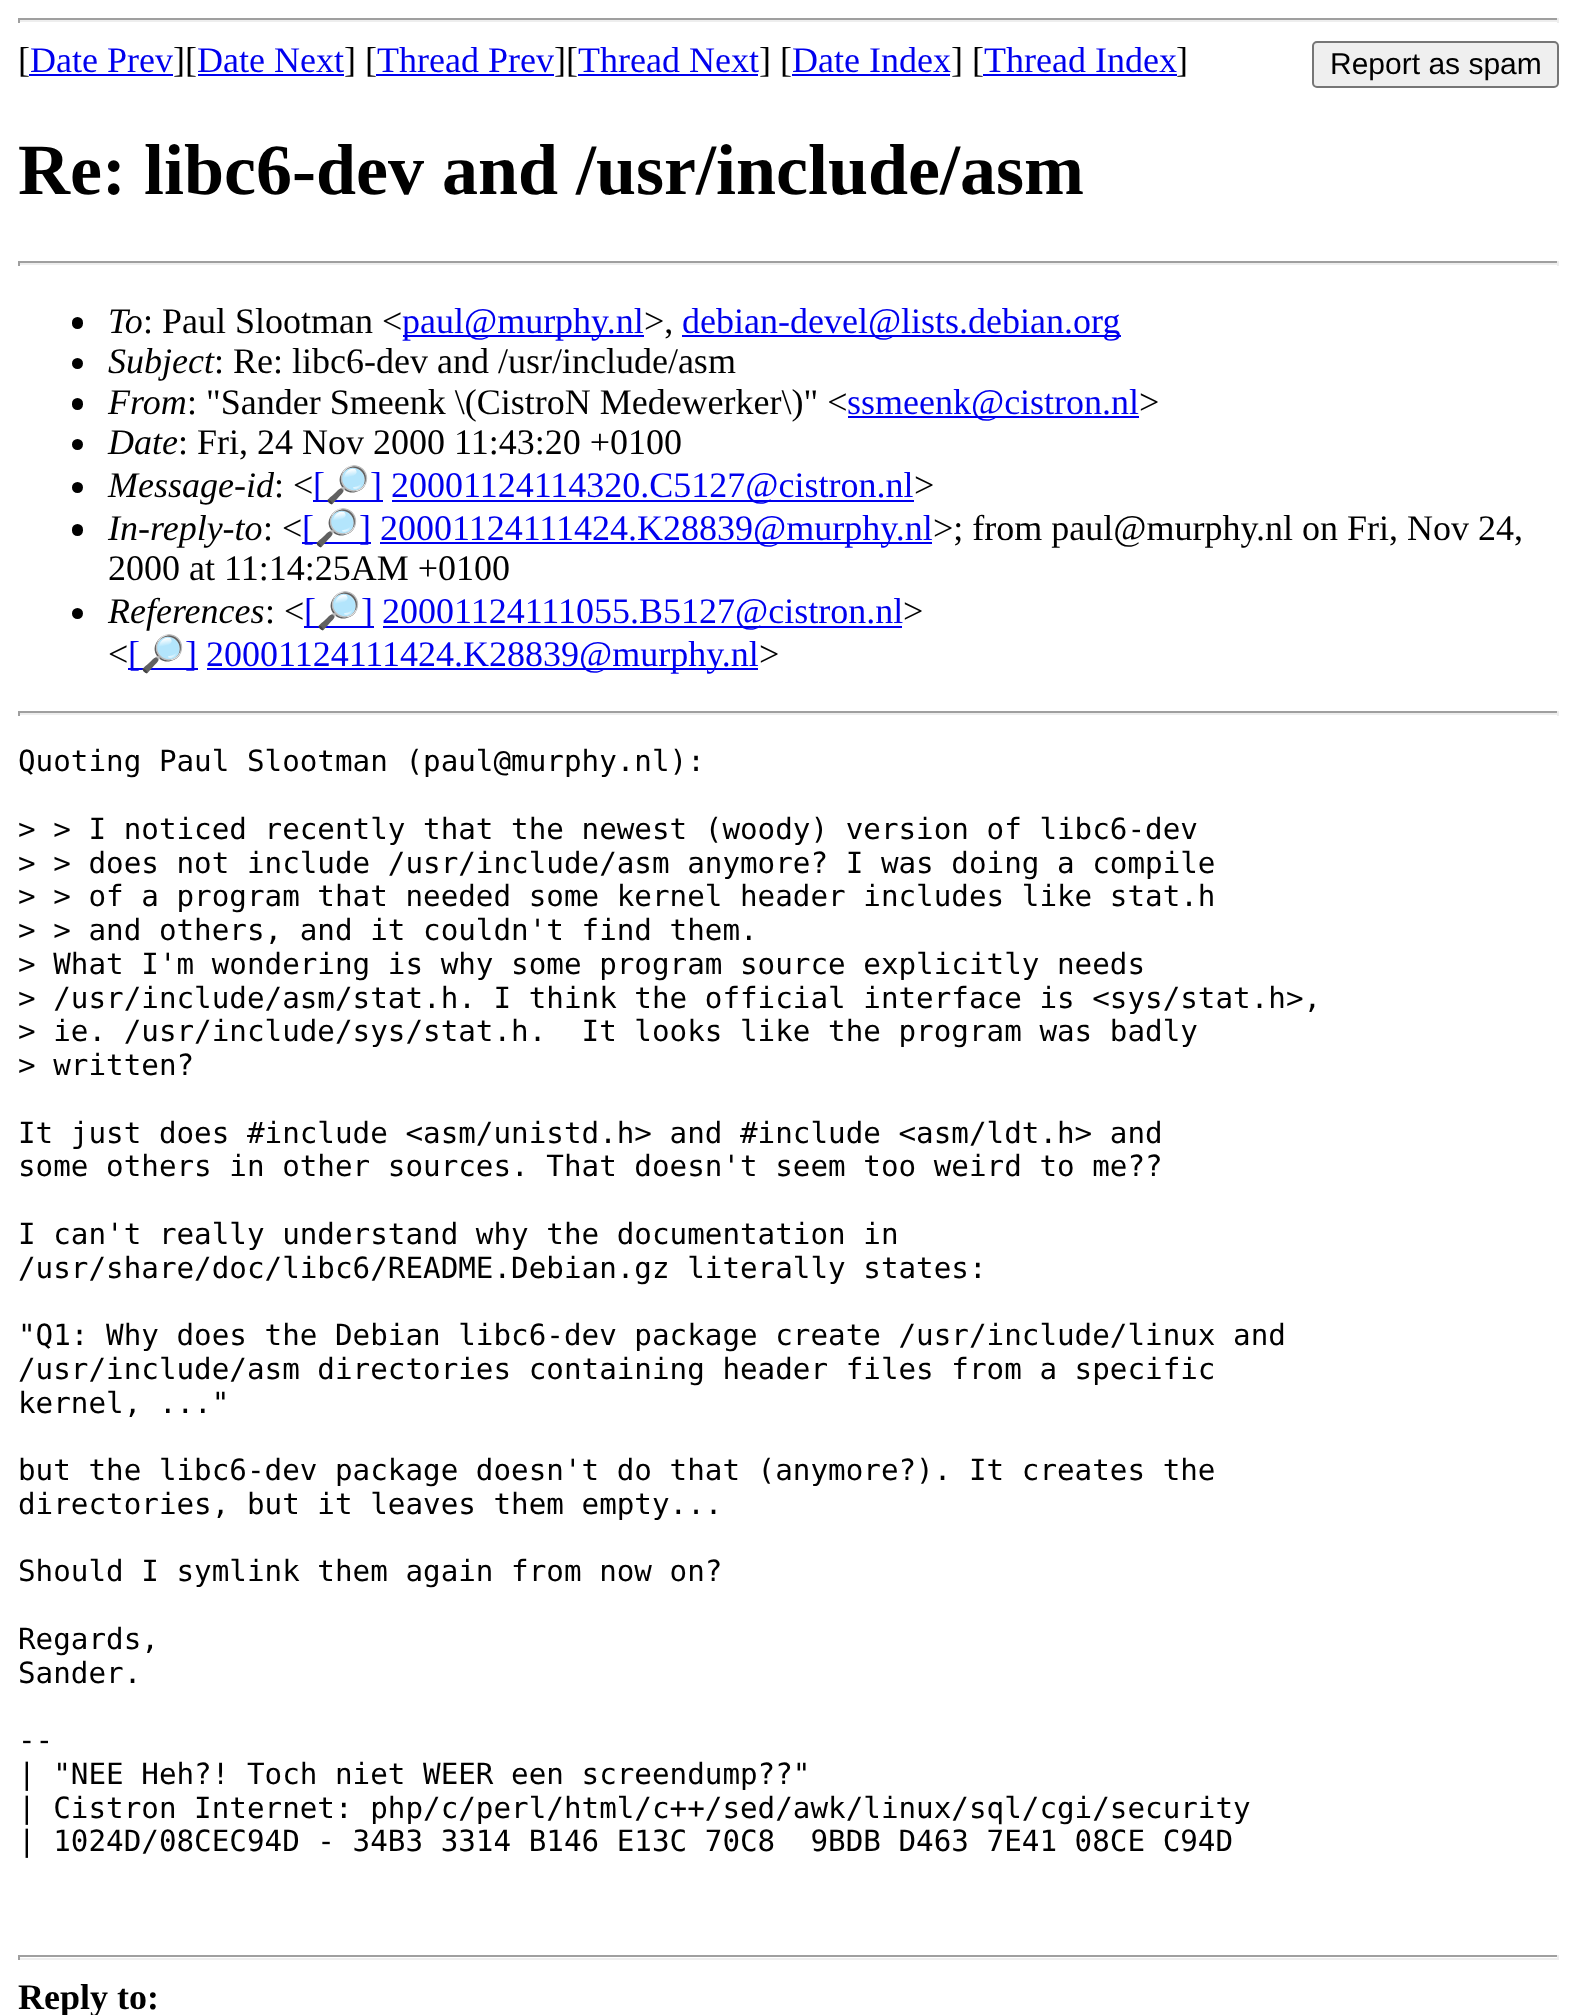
<svg xmlns="http://www.w3.org/2000/svg" xmlns:xlink="http://www.w3.org/1999/xlink" width="1577" height="2015" viewBox="0 0 1577 2015">
<style>
.cls-1{font:36px Liberation Serif;fill:#000000}
.cls-2{font:36px Liberation Serif;fill:#0000ee}
.cls-3{font:30px Liberation Sans;fill:#000000}
.cls-4{font:bold 72px Liberation Serif;fill:#000000}
.cls-5{font:italic 36px Liberation Serif;fill:#000000}
.cls-6{font:36px Noto Color Emoji;fill:#0000ee}
.cls-7{font:29.25px DejaVu Sans Mono;fill:#000000}
.cls-8{font:bold 36px Liberation Serif;fill:#000000}
</style>
<rect width="100%" height="100%" fill="#ffffff"/>
<rect fill="#9f9f9f" x="18" y="18" width="1541" height="2"/>
<rect fill="#eeeeee" x="1557" y="18" width="2" height="5"/>
<rect fill="#eeeeee" x="18" y="20" width="1541" height="2"/>
<rect fill="#9f9f9f" x="18" y="18" width="2" height="5"/>
<rect fill="#0000ee" x="29" y="74" width="144" height="2"/>
<rect fill="#0000ee" x="198" y="74" width="146" height="2"/>
<rect fill="#0000ee" x="376" y="74" width="178" height="2"/>
<rect fill="#0000ee" x="578" y="74" width="180" height="2"/>
<rect fill="#0000ee" x="792" y="74" width="158" height="2"/>
<rect fill="#0000ee" x="983" y="74" width="194" height="2"/>
<rect fill="#efefef" stroke="#767676" stroke-width="2" x="1313" y="42" width="245" height="45" rx="4"/>
<rect fill="#9f9f9f" x="18" y="261" width="1541" height="2"/>
<rect fill="#eeeeee" x="1557" y="261" width="2" height="5"/>
<rect fill="#eeeeee" x="18" y="263" width="1541" height="2"/>
<rect fill="#9f9f9f" x="18" y="261" width="2" height="5"/>
<rect fill="#000000" x="72" y="317" width="11" height="12" rx="5.5"/>
<rect fill="#0000ee" x="403" y="335" width="241" height="2"/>
<rect fill="#0000ee" x="682" y="335" width="439" height="2"/>
<circle fill="#000000" cx="77.5" cy="363.5" r="5.5"/>
<rect fill="#000000" x="72" y="398" width="11" height="12" rx="5.5"/>
<rect fill="#0000ee" x="848" y="416" width="291" height="2"/>
<circle fill="#000000" cx="77.5" cy="444.5" r="5.5"/>
<circle fill="#000000" cx="77.5" cy="487.5" r="5.5"/>
<rect fill="#0000ee" x="313" y="500" width="70" height="2"/>
<rect fill="#0000ee" x="392" y="500" width="522" height="2"/>
<rect fill="#000000" x="72" y="524" width="11" height="12" rx="5.5"/>
<rect fill="#0000ee" x="302" y="542" width="69" height="2"/>
<rect fill="#0000ee" x="380" y="542" width="552" height="2"/>
<circle fill="#000000" cx="77.5" cy="613.5" r="5.5"/>
<rect fill="#0000ee" x="304" y="626" width="70" height="2"/>
<rect fill="#0000ee" x="383" y="626" width="519" height="2"/>
<rect fill="#0000ee" x="128" y="668" width="70" height="2"/>
<rect fill="#0000ee" x="207" y="668" width="551" height="2"/>
<rect fill="#9f9f9f" x="18" y="711" width="1541" height="2"/>
<rect fill="#eeeeee" x="1557" y="711" width="2" height="5"/>
<rect fill="#eeeeee" x="18" y="713" width="1541" height="2"/>
<rect fill="#9f9f9f" x="18" y="711" width="2" height="5"/>
<rect fill="#9f9f9f" x="18" y="1955" width="1541" height="2"/>
<rect fill="#eeeeee" x="1557" y="1955" width="2" height="5"/>
<rect fill="#eeeeee" x="18" y="1958" width="1541" height="2"/>
<rect fill="#9f9f9f" x="18" y="1955" width="2" height="5"/>
<text class="cls-1" x="18" y="72">[</text>
<text class="cls-2" x="30" y="72">Date Prev</text>
<text class="cls-1" x="173" y="72">][</text>
<text class="cls-2" x="197" y="72">Date Next</text>
<text class="cls-1" x="344" y="72">] [</text>
<text class="cls-2" x="377" y="72">Thread Prev</text>
<text class="cls-1" x="554" y="72">][</text>
<text class="cls-2" x="578" y="72">Thread Next</text>
<text class="cls-1" x="759" y="72">] [</text>
<text class="cls-2" x="792" y="72">Date Index</text>
<text class="cls-1" x="951" y="72">] [</text>
<text class="cls-2" x="984" y="72">Thread Index</text>
<text class="cls-1" x="1176" y="72">]</text>
<text class="cls-3" x="1330" y="74">Report as spam</text>
<text class="cls-4" x="18" y="194">Re: libc6-dev and /usr/include/asm</text>
<text class="cls-5" x="108" y="333">To</text>
<text class="cls-1" x="143" y="333">: Paul Slootman &lt;</text>
<text class="cls-2" x="402" y="333">paul@murphy.nl</text>
<text class="cls-1" x="644" y="333">&gt;,</text>
<text class="cls-2" x="682" y="333">debian-devel@lists.debian.org</text>
<text class="cls-5" x="108" y="373">Subject</text>
<text class="cls-1" x="214" y="373">: Re: libc6-dev and /usr/include/asm</text>
<text class="cls-5" x="108" y="414">From</text>
<text class="cls-1" x="187" y="414">: "Sander Smeenk \(CistroN Medewerker\)" &lt;</text>
<text class="cls-2" x="847" y="414">ssmeenk@cistron.nl</text>
<text class="cls-1" x="1139" y="414">&gt;</text>
<text class="cls-5" x="108" y="454">Date</text>
<text class="cls-1" x="178" y="454">: Fri, 24 Nov 2000 11:43:20 +0100</text>
<text class="cls-5" x="108" y="497">Message-id</text>
<text class="cls-1" x="274" y="497">: &lt;</text>
<text class="cls-2" x="313" y="497">[</text>
<text class="cls-6" x="325" y="497">🔎</text>
<text class="cls-2" x="370" y="497">]</text>
<text class="cls-2" x="391" y="497">20001124114320.C5127@cistron.nl</text>
<text class="cls-1" x="914" y="497">&gt;</text>
<text class="cls-5" x="108" y="540">In-reply-to</text>
<text class="cls-1" x="263" y="540">: &lt;</text>
<text class="cls-2" x="302" y="540">[</text>
<text class="cls-6" x="314" y="540">🔎</text>
<text class="cls-2" x="359" y="540">]</text>
<text class="cls-2" x="380" y="540">20001124111424.K28839@murphy.nl</text>
<text class="cls-1" x="933" y="540">&gt;; from paul@murphy.nl on Fri, Nov 24,</text>
<text class="cls-1" x="108" y="580">2000 at 11:14:25AM +0100</text>
<text class="cls-5" x="108" y="623">References</text>
<text class="cls-1" x="265" y="623">: &lt;</text>
<text class="cls-2" x="304" y="623">[</text>
<text class="cls-6" x="316" y="623">🔎</text>
<text class="cls-2" x="361" y="623">]</text>
<text class="cls-2" x="382" y="623">20001124111055.B5127@cistron.nl</text>
<text class="cls-1" x="903" y="623">&gt;</text>
<text class="cls-1" x="108" y="666">&lt;</text>
<text class="cls-2" x="128" y="666">[</text>
<text class="cls-6" x="140" y="666">🔎</text>
<text class="cls-2" x="185" y="666">]</text>
<text class="cls-2" x="206" y="666">20001124111424.K28839@murphy.nl</text>
<text class="cls-1" x="759" y="666">&gt;</text>
<text class="cls-7" x="18" y="771">Quoting Paul Slootman (paul@murphy.nl):</text>
<text class="cls-7" xml:space="preserve"><tspan x="18" y="839">&gt; &gt; I noticed recently that the newest (woody) version of libc6-dev</tspan><tspan x="18" y="873">&gt; &gt; does not include /usr/include/asm anymore? I was doing a compile</tspan><tspan x="18" y="906">&gt; &gt; of a program that needed some kernel header includes like stat.h</tspan><tspan x="18" y="940">&gt; &gt; and others, and it couldn't find them.</tspan><tspan x="18" y="974">&gt; What I'm wondering is why some program source explicitly needs</tspan><tspan x="18" y="1008">&gt; /usr/include/asm/stat.h. I think the official interface is &lt;sys/stat.h&gt;,</tspan><tspan x="18" y="1041">&gt; ie. /usr/include/sys/stat.h.  It looks like the program was badly</tspan><tspan x="18" y="1075">&gt; written?</tspan></text>
<text class="cls-7"><tspan x="18" y="1143">It just does #include &lt;asm/unistd.h&gt; and #include &lt;asm/ldt.h&gt; and</tspan><tspan x="18" y="1176">some others in other sources. That doesn't seem too weird to me??</tspan></text>
<text class="cls-7"><tspan x="18" y="1244">I can't really understand why the documentation in</tspan><tspan x="18" y="1278">/usr/share/doc/libc6/README.Debian.gz literally states:</tspan></text>
<text class="cls-7"><tspan x="18" y="1345">"Q1: Why does the Debian libc6-dev package create /usr/include/linux and</tspan><tspan x="18" y="1379">/usr/include/asm directories containing header files from a specific</tspan><tspan x="18" y="1413">kernel, ..."</tspan></text>
<text class="cls-7"><tspan x="18" y="1480">but the libc6-dev package doesn't do that (anymore?). It creates the</tspan><tspan x="18" y="1514">directories, but it leaves them empty...</tspan></text>
<text class="cls-7" x="18" y="1581">Should I symlink them again from now on?</text>
<text class="cls-7"><tspan x="18" y="1649">Regards,</tspan><tspan x="18" y="1683">Sander.</tspan></text>
<text class="cls-7" xml:space="preserve"><tspan x="18" y="1750">--</tspan><tspan x="18" y="1784">| "NEE Heh?! Toch niet WEER een screendump??"</tspan><tspan x="18" y="1818">| Cistron Internet: php/c/perl/html/c++/sed/awk/linux/sql/cgi/security</tspan><tspan x="18" y="1851">| 1024D/08CEC94D - 34B3 3314 B146 E13C 70C8  9BDB D463 7E41 08CE C94D</tspan></text>
<text class="cls-8" x="18" y="2009">Reply to:</text>
</svg>
